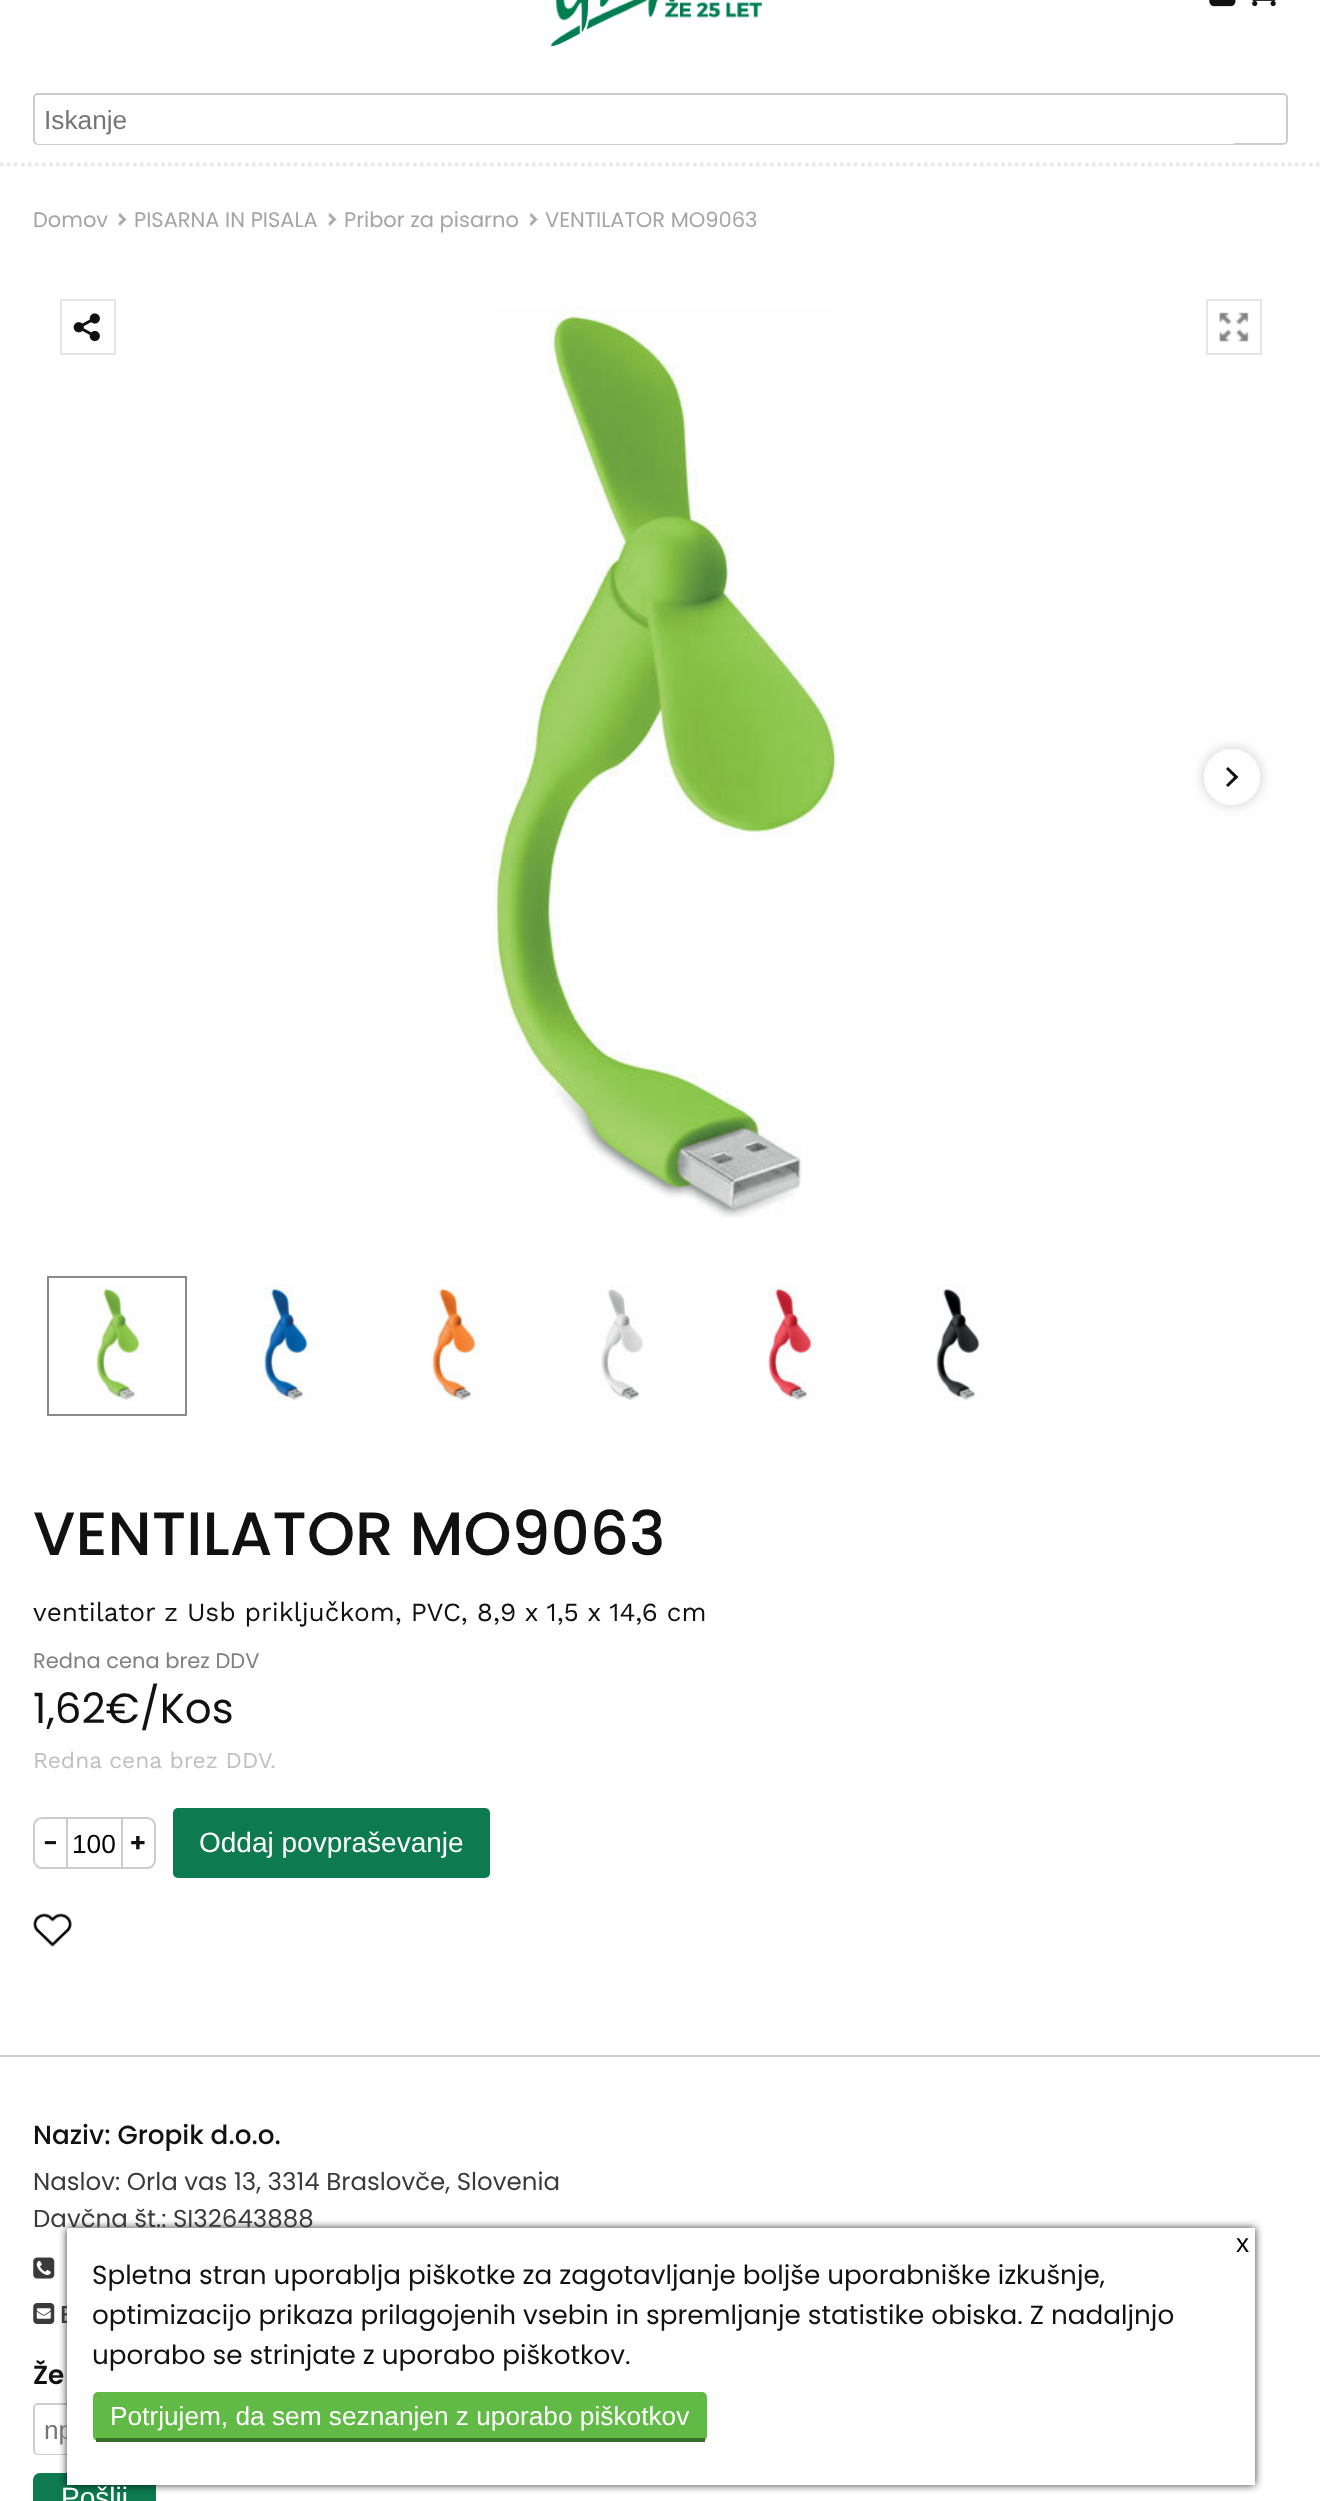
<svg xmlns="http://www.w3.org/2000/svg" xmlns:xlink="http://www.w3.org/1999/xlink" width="1320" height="2501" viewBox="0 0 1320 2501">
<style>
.cls-1{font:26.25px Liberation Sans;fill:#757575}
.cls-2{font:21px Poppins;fill:#a5a5a5}
.cls-3{font:500 61.25px Poppins;fill:#111111}
.cls-4{font:26.25px Work Sans;fill:#111111}
.cls-5{font:21px Poppins;fill:#808080}
.cls-6{font:42px Poppins;fill:#111111}
.cls-7{font:22.75px Work Sans;fill:#bfbfbf}
.cls-8{font:600 26.25px Poppins;fill:#111111}
.cls-9{font:26.25px Liberation Sans;fill:#000000}
.cls-10{font:28px Liberation Sans;fill:#ffffff}
.cls-11{font:500 26.25px Poppins;fill:#111111}
.cls-12{font:24.5px Poppins;fill:#3a3a3a}
.cls-13{font:500 24.5px Poppins;fill:#3a3a3a}
.cls-14{font:26.25px Poppins;fill:#111111}
.cls-15{font:26.25px Liberation Sans;fill:#ffffff}
</style>
<defs>
<clipPath id="clip1"><path d="M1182 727H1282V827H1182ZM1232 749C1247.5 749 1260 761.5 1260 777C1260 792.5 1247.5 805 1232 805C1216.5 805 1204 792.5 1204 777C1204 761.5 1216.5 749 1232 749Z" clip-rule="evenodd"/></clipPath>
</defs>
<rect width="100%" height="100%" fill="#ffffff"/>
<path fill="none" stroke="#e8e8e8" stroke-width="3.5" stroke-dasharray="3.5 3.5" d="M0 164.5H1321"/>
<image xlink:href="image0.png" x="550" y="0" width="213" height="47"/>
<image xlink:href="image1.png" x="1209" y="0" width="27" height="7"/>
<image xlink:href="image2.png" x="1252" y="0" width="24" height="7"/>
<rect fill="none" stroke="#cccccc" stroke-width="2" x="34" y="94" width="1253" height="50" rx="4"/>
<path fill="#ffffff" d="M39 95H1234V144H39C37 144 35 142 35 140V99C35 97 37 95 39 95Z"/>
<image xlink:href="image3.png" x="118" y="212" width="9" height="14"/>
<image xlink:href="image4.png" x="328" y="212" width="9" height="14"/>
<image xlink:href="image5.png" x="529" y="212" width="9" height="14"/>
<rect fill="none" stroke="#e5e5e5" stroke-width="2" x="61" y="300" width="54" height="54"/>
<image xlink:href="image6.png" x="73" y="313" width="27" height="29"/>
<image xlink:href="image7.png" x="1219" y="312" width="30" height="30"/>
<rect fill="none" stroke="#e5e5e5" stroke-width="2" x="1207" y="300" width="54" height="54"/>
<image xlink:href="image8.png" x="492" y="307" width="344" height="911"/>
<g clip-path="url(#clip1)">
<rect fill="#000000" fill-opacity="0.2" filter="blur(7px)" x="1204" y="749" width="56" height="56" rx="28"/>
</g>
<circle fill="#ffffff" fill-opacity="0.9" cx="1232" cy="777" r="28"/>
<path fill="#111111" d="M1234 777L1226 769L1228 767L1238.5 777L1228 787L1226 785Z"/>
<rect fill="none" stroke="#8a8a8a" stroke-width="2" x="48" y="1277" width="138" height="138"/>
<image xlink:href="image9.png" x="95" y="1284" width="50" height="118"/>
<image xlink:href="image10.png" x="263" y="1284" width="49" height="118"/>
<image xlink:href="image11.png" x="431" y="1285" width="49" height="117"/>
<image xlink:href="image12.png" x="601" y="1285" width="43" height="117"/>
<image xlink:href="image13.png" x="767" y="1284" width="49" height="118"/>
<image xlink:href="image14.png" x="935" y="1284" width="49" height="118"/>
<path fill="none" stroke="#cccccc" stroke-width="2" d="M42 1818H67V1868H42C37.5 1868 34 1864.5 34 1860V1826C34 1821.5 37.5 1818 42 1818Z"/>
<rect fill="#cccccc" x="68" y="1817" width="53" height="2"/>
<rect fill="#cccccc" x="68" y="1867" width="53" height="2"/>
<path fill="none" stroke="#cccccc" stroke-width="2" d="M122 1818H147C151.5 1818 155 1821.5 155 1826V1860C155 1864.5 151.5 1868 147 1868H122Z"/>
<rect fill="#0d7a50" x="173" y="1808" width="317" height="70" rx="5"/>
<image xlink:href="image15.png" x="33" y="1913" width="39" height="34"/>
<rect fill="#cccccc" x="0" y="2055" width="1320" height="2"/>
<image xlink:href="image16.png" x="33" y="2257" width="22" height="22"/>
<image xlink:href="image17.png" x="33" y="2303" width="22" height="21"/>
<rect fill="none" stroke="#cccccc" stroke-width="2" x="34" y="2404" width="614" height="50" rx="4"/>
<rect fill="#ffffff" x="35" y="2405" width="613" height="49" rx="4"/>
<rect fill="#0d7a50" x="33" y="2473" width="123" height="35" rx="7"/>
<rect fill="#000000" fill-opacity="0.8" filter="blur(4.5px)" x="67" y="2228" width="1188" height="257"/>
<text class="cls-1" x="44" y="129">Iskanje</text>
<text class="cls-2" x="33" y="227">Domov</text>
<text class="cls-2" x="134" y="227">PISARNA IN PISALA</text>
<text class="cls-2" x="344" y="227">Pribor za pisarno</text>
<text class="cls-2" x="545" y="227">VENTILATOR MO9063</text>
<text class="cls-3" x="33" y="1555">VENTILATOR MO9063</text>
<text class="cls-4" x="33" y="1621">ventilator z Usb priključkom, PVC, 8,9 x 1,5 x 14,6 cm</text>
<text class="cls-5" x="33" y="1668">Redna cena brez DDV</text>
<text class="cls-6" x="33" y="1723">1,62€/Kos</text>
<text class="cls-7" x="33" y="1768">Redna cena brez DDV.</text>
<text class="cls-8" x="43" y="1852">-</text>
<text class="cls-9" x="72" y="1853">100</text>
<text class="cls-8" x="129" y="1852">+</text>
<text class="cls-10" x="199" y="1852">Oddaj povpraševanje</text>
<text class="cls-11" x="33" y="2144">Naziv: Gropik d.o.o.</text>
<text class="cls-12"><tspan x="33" y="2190">Naslov: Orla vas 13, 3314 Braslovče, Slovenia</tspan><tspan x="33" y="2227">Davčna št.: SI32643888</tspan></text>
<text class="cls-13" x="60" y="2323">E</text>
<text class="cls-8" x="33" y="2384">Že</text>
<text class="cls-1" x="44" y="2439">np</text>
<text class="cls-10" x="61" y="2507">Pošlji</text>
<rect fill="#ffffff" x="67" y="2228" width="1188" height="257"/>
<text class="cls-9" x="1236" y="2252">x</text>
<text class="cls-14"><tspan x="92" y="2284">Spletna stran uporablja piškotke za zagotavljanje boljše uporabniške izkušnje,</tspan><tspan x="92" y="2324">optimizacijo prikaza prilagojenih vsebin in spremljanje statistike obiska. Z nadaljnjo</tspan><tspan x="92" y="2364">uporabo se strinjate z uporabo piškotkov.</tspan></text>
<rect fill="#62ba46" x="93" y="2392" width="614" height="49" rx="5"/>
<rect fill="#3b702a" x="96" y="2438" width="609" height="4"/>
<text class="cls-15" x="110" y="2425">Potrjujem, da sem seznanjen z uporabo piškotkov</text>
</svg>
